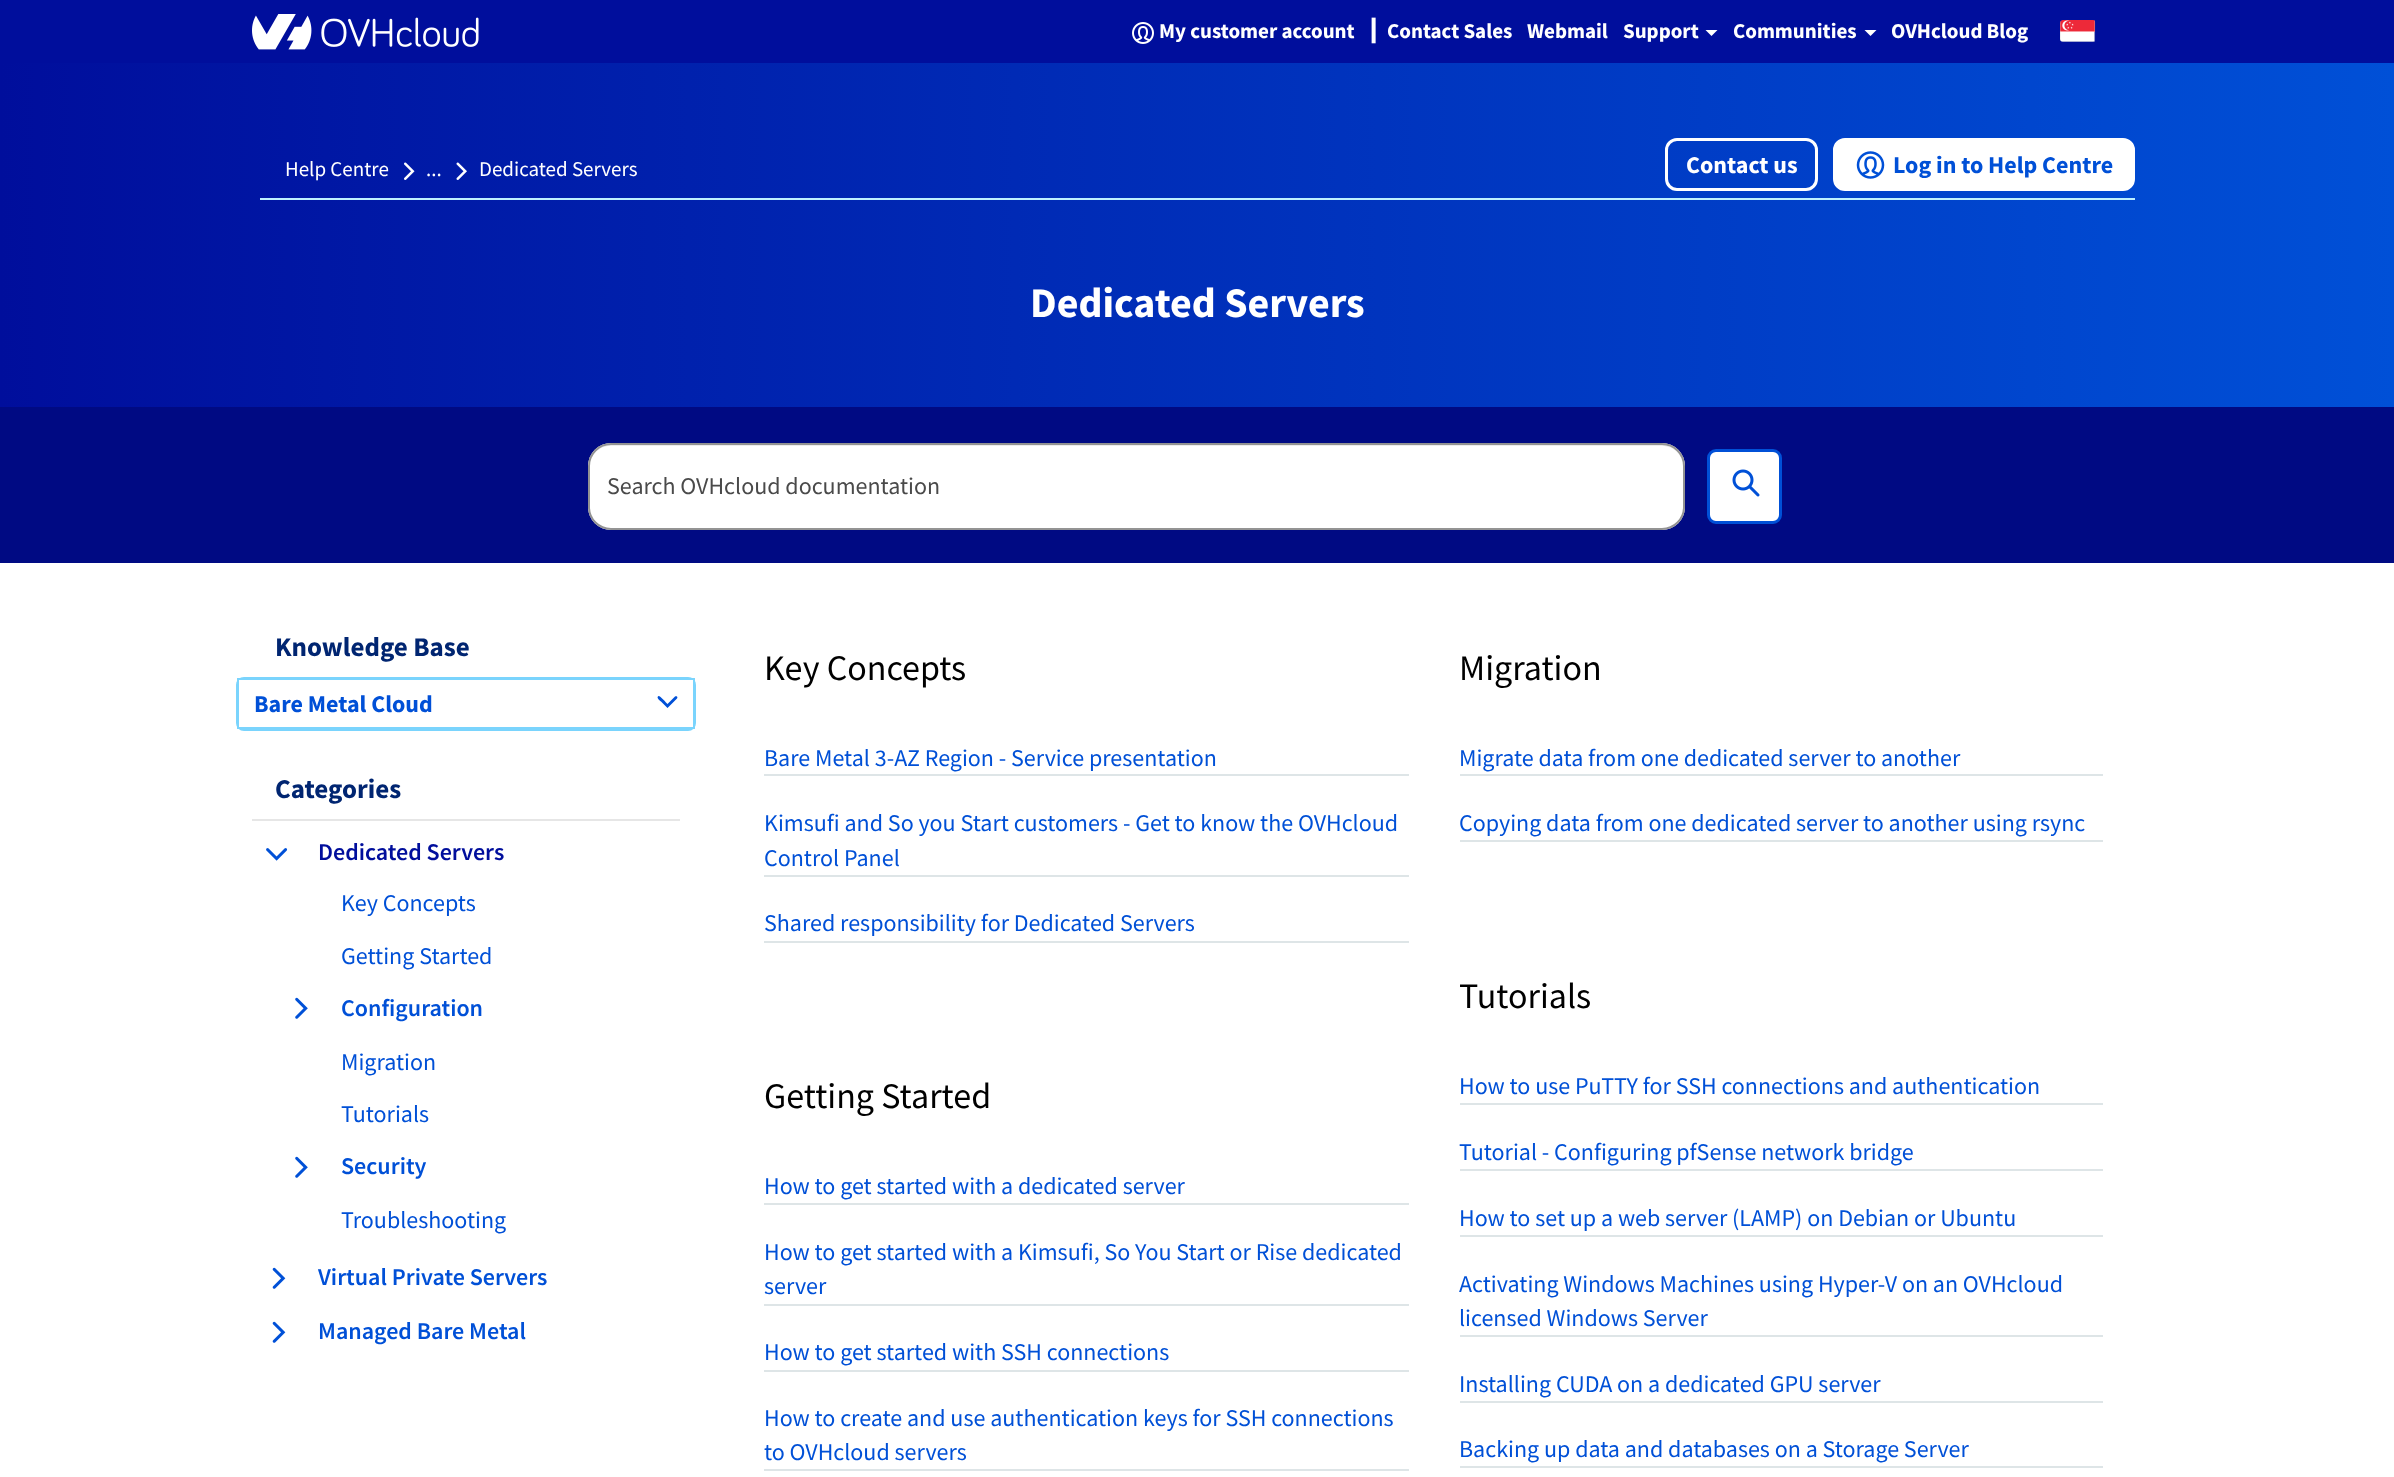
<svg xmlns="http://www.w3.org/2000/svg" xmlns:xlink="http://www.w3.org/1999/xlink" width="2394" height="1477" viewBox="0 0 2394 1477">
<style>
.cls-1{font:bold 21px Source Sans Pro;fill:#ffffff}
.cls-2{font:bold 21px DejaVu Sans;fill:#ffffff}
.cls-3{font:21px Source Sans Pro;fill:#ffffff}
.cls-4{font:bold 24px Source Sans Pro;fill:#ffffff}
.cls-5{font:bold 24px Source Sans Pro;fill:#0050d7}
.cls-6{font:bold 42px Source Sans Pro;fill:#ffffff}
.cls-7{font:24px Source Sans Pro;fill:#4a4a4a}
.cls-8{font:bold 27px Source Sans Pro;fill:#002571}
.cls-9{font:600 24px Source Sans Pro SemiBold;fill:#000e9c}
.cls-10{font:24px Source Sans Pro;fill:#0050d7}
.cls-11{font:600 24px Source Sans Pro SemiBold;fill:#0050d7}
.cls-12{font:36px Source Sans Pro;fill:#000000}
</style>
<defs>
<linearGradient id="g1" gradientUnits="userSpaceOnUse" x1="0" y1="235" x2="2394" y2="235"><stop offset="0" stop-color="#000e9c"/><stop offset="1" stop-color="#0050d7"/></linearGradient>
</defs>
<rect width="100%" height="100%" fill="#ffffff"/>
<rect fill="#000e9c" x="0" y="0" width="2394" height="63"/>
<image xlink:href="image0.png" x="252" y="14" width="227" height="36"/>
<image xlink:href="image1.png" x="1132" y="22" width="22" height="22"/>
<path fill="#ffffff" d="M1705.5 30H1717.5L1711.5 36Z"/>
<path fill="#ffffff" d="M1864.5 30H1876.5L1870.5 36Z"/>
<image xlink:href="image2.png" x="2060" y="20" width="36" height="22"/>
<rect fill="url(#g1)" x="0" y="63" width="2394" height="344"/>
<rect fill="#bef1ff" x="260" y="198" width="1875" height="2"/>
<image xlink:href="image3.png" x="404" y="162" width="11" height="18"/>
<image xlink:href="image4.png" x="456" y="162" width="11" height="18"/>
<rect fill="none" stroke="#ffffff" stroke-width="3" x="1666.5" y="139.5" width="150" height="50" rx="10.5"/>
<rect fill="#ffffff" stroke="#ffffff" stroke-width="3" x="1834.5" y="139.5" width="299" height="50" rx="10.5"/>
<image xlink:href="image5.png" x="1856" y="151" width="29" height="28"/>
<rect fill="#000a83" x="0" y="407" width="2394" height="156"/>
<rect fill="#ffffff" x="588" y="443" width="1097" height="87" rx="23"/>
<path fill="#ececec" d="M610 446H1662C1674 446 1683 455 1683 466C1683 454 1674 444 1662 444H611C599 444 590 454 590 466C590 455 599 446 610 446Z"/>
<rect fill="none" stroke="#939393" stroke-width="2" x="589" y="444" width="1095" height="85" rx="22"/>
<rect fill="#ffffff" stroke="#0050d7" stroke-width="3" x="1708.5" y="450.5" width="72" height="72" rx="7.5"/>
<image xlink:href="image6.png" x="1732" y="469" width="28" height="28"/>
<rect fill="none" stroke="#7ad4fd" stroke-width="2" x="237" y="678" width="458" height="52" rx="7"/>
<rect fill="#ffffff" stroke="#7ad4fd" stroke-width="2" x="238" y="679" width="456" height="49"/>
<path fill="#0050d7" d="M675 696.5L667.5 704C666 702.5 660 695.5 658.5 696C655.5 697.5 660.5 701 661 701.5L667.5 708L677 698.5C677.5 698 677.5 697 677 696.5C676.5 696 675.5 696 675 696.5Z"/>
<rect fill="#e6e6e6" x="252" y="819" width="428" height="2"/>
<image xlink:href="image7.png" x="266" y="848" width="22" height="13"/>
<image xlink:href="image8.png" x="295" y="997" width="13" height="22"/>
<image xlink:href="image8.png" x="295" y="1156" width="13" height="22"/>
<image xlink:href="image9.png" x="272" y="1267" width="14" height="22"/>
<image xlink:href="image9.png" x="272" y="1321" width="14" height="22"/>
<rect fill="#dee5e7" x="764" y="774" width="645" height="2"/>
<rect fill="#dee5e7" x="764" y="875" width="645" height="2"/>
<rect fill="#dee5e7" x="764" y="941" width="645" height="2"/>
<rect fill="#dee5e7" x="1460" y="774" width="643" height="2"/>
<rect fill="#dee5e7" x="1460" y="840" width="643" height="2"/>
<rect fill="#dee5e7" x="764" y="1203" width="645" height="2"/>
<rect fill="#dee5e7" x="764" y="1304" width="645" height="2"/>
<rect fill="#dee5e7" x="764" y="1370" width="645" height="2"/>
<rect fill="#dee5e7" x="764" y="1469" width="645" height="2"/>
<rect fill="#dee5e7" x="1460" y="1103" width="643" height="2"/>
<rect fill="#dee5e7" x="1460" y="1169" width="643" height="2"/>
<rect fill="#dee5e7" x="1460" y="1235" width="643" height="2"/>
<rect fill="#dee5e7" x="1460" y="1335" width="643" height="2"/>
<rect fill="#dee5e7" x="1460" y="1401" width="643" height="2"/>
<rect fill="#dee5e7" x="1460" y="1466" width="643" height="2"/>
<text class="cls-1" x="1159" y="38">My customer account</text>
<text class="cls-2" x="1367" y="38">┃</text>
<text class="cls-1" x="1387" y="38">Contact Sales</text>
<text class="cls-1" x="1527" y="38">Webmail</text>
<text class="cls-1" x="1623" y="38">Support</text>
<text class="cls-1" x="1733" y="38">Communities</text>
<text class="cls-1" x="1891" y="38">OVHcloud Blog</text>
<text class="cls-3" x="285" y="176">Help Centre</text>
<text class="cls-3" x="426" y="176">...</text>
<text class="cls-3" x="479" y="176">Dedicated Servers</text>
<text class="cls-4" x="1686" y="173">Contact us</text>
<text class="cls-5" x="1893" y="173">Log in to Help Centre</text>
<text class="cls-6" x="1030" y="317">Dedicated Servers</text>
<text class="cls-7" x="607" y="494">Search OVHcloud documentation</text>
<text class="cls-8" x="275" y="656">Knowledge Base</text>
<text class="cls-5" x="254" y="712">Bare Metal Cloud</text>
<text class="cls-8" x="275" y="798">Categories</text>
<text class="cls-9" x="318" y="860">Dedicated Servers</text>
<text class="cls-10" x="341" y="911">Key Concepts</text>
<text class="cls-10" x="341" y="964">Getting Started</text>
<text class="cls-11" x="341" y="1016">Configuration</text>
<text class="cls-10" x="341" y="1070">Migration</text>
<text class="cls-10" x="341" y="1122">Tutorials</text>
<text class="cls-11" x="341" y="1174">Security</text>
<text class="cls-10" x="341" y="1228">Troubleshooting</text>
<text class="cls-11" x="318" y="1285">Virtual Private Servers</text>
<text class="cls-11" x="318" y="1339">Managed Bare Metal</text>
<text class="cls-12" x="764" y="680">Key Concepts</text>
<text class="cls-10" x="764" y="766">Bare Metal 3-AZ Region - Service presentation</text>
<text class="cls-10"><tspan x="764" y="831">Kimsufi and So you Start customers - Get to know the OVHcloud</tspan><tspan x="764" y="866">Control Panel</tspan></text>
<text class="cls-10" x="764" y="931">Shared responsibility for Dedicated Servers</text>
<text class="cls-12" x="1459" y="680">Migration</text>
<text class="cls-10" x="1459" y="766">Migrate data from one dedicated server to another</text>
<text class="cls-10" x="1459" y="831">Copying data from one dedicated server to another using rsync</text>
<text class="cls-12" x="764" y="1108">Getting Started</text>
<text class="cls-10" x="764" y="1194">How to get started with a dedicated server</text>
<text class="cls-10"><tspan x="764" y="1260">How to get started with a Kimsufi, So You Start or Rise dedicated</tspan><tspan x="764" y="1294">server</tspan></text>
<text class="cls-10" x="764" y="1360">How to get started with SSH connections</text>
<text class="cls-10"><tspan x="764" y="1426">How to create and use authentication keys for SSH connections</tspan><tspan x="764" y="1460">to OVHcloud servers</tspan></text>
<text class="cls-12" x="1459" y="1008">Tutorials</text>
<text class="cls-10" x="1459" y="1094">How to use PuTTY for SSH connections and authentication</text>
<text class="cls-10" x="1459" y="1160">Tutorial - Configuring pfSense network bridge</text>
<text class="cls-10" x="1459" y="1226">How to set up a web server (LAMP) on Debian or Ubuntu</text>
<text class="cls-10"><tspan x="1459" y="1292">Activating Windows Machines using Hyper-V on an OVHcloud</tspan><tspan x="1459" y="1326">licensed Windows Server</tspan></text>
<text class="cls-10" x="1459" y="1392">Installing CUDA on a dedicated GPU server</text>
<text class="cls-10" x="1459" y="1457">Backing up data and databases on a Storage Server</text>
</svg>
